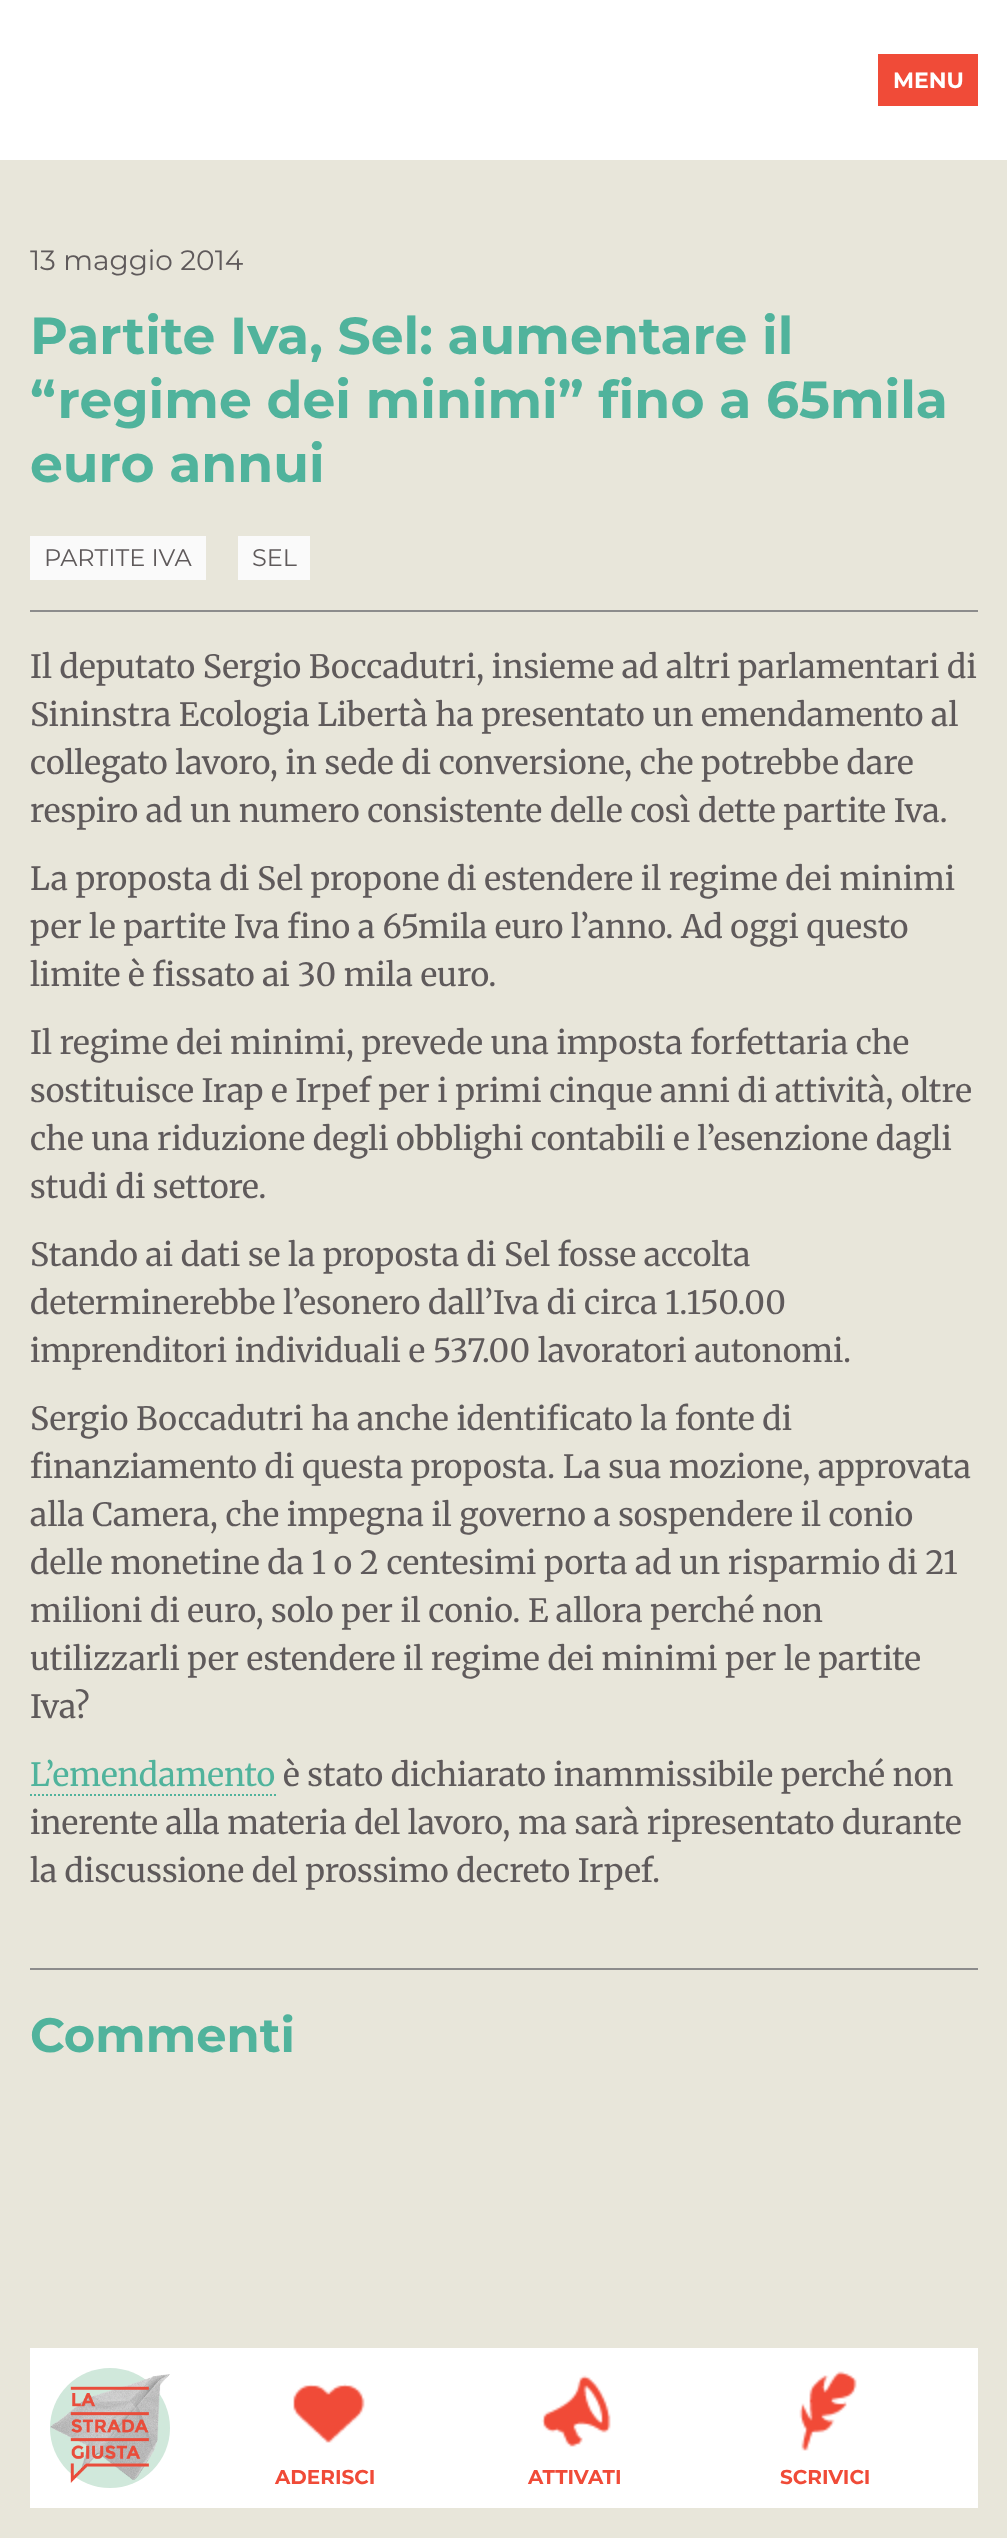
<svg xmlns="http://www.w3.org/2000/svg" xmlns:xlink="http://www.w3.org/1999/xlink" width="1007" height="2538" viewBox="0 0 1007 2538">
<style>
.cls-1{font:bold 22px Montserrat;fill:#ffffff}
.cls-2{font:28px Montserrat;fill:#5f5a5b}
.cls-3{font:bold 52px Montserrat;fill:#50b39c}
.cls-4{font:24px Montserrat;fill:#5f5a5b}
.cls-5{font:32px Merriweather;fill:#5f5a5b}
.cls-6{font:32px Merriweather;fill:#50b39c}
.cls-7{font:bold 48px Montserrat;fill:#50b39c}
.cls-8{font:bold 20px Montserrat;fill:#f04b38}
</style>
<rect width="100%" height="100%" fill="#e8e6da"/>
<rect fill="#ffffff" x="0" y="0" width="1007" height="160"/>
<rect fill="#f04b38" x="878" y="54" width="100" height="52"/>
<rect fill="#fafafa" x="30" y="536" width="176" height="44"/>
<rect fill="#fafafa" x="238" y="536" width="72" height="44"/>
<rect fill="#8c8c8c" x="30" y="610" width="948" height="2"/>
<path fill="none" stroke="#50b39c" stroke-width="2" stroke-dasharray="2 2" d="M30 1795H276"/>
<rect fill="#8c8c8c" x="30" y="1968" width="948" height="2"/>
<rect fill="#ffffff" x="30" y="2348" width="948" height="160"/>
<circle fill="#d0e8db" cx="110" cy="2428" r="60"/>
<image xlink:href="image0.png" x="50" y="2374" width="120" height="106"/>
<image xlink:href="image1.png" x="70" y="2386" width="79" height="97"/>
<image xlink:href="image2.png" x="293" y="2383" width="72" height="60"/>
<image xlink:href="image3.png" x="541" y="2375" width="70" height="72"/>
<image xlink:href="image4.png" x="799" y="2371" width="58" height="80"/>
<text class="cls-1" x="893" y="88">MENU</text>
<text class="cls-2" x="30" y="270">13 maggio 2014</text>
<text class="cls-3"><tspan x="30" y="354">Partite Iva, Sel: aumentare il</tspan><tspan x="30" y="418">“regime dei minimi” fino a 65mila</tspan><tspan x="30" y="482">euro annui</tspan></text>
<text class="cls-4" x="44" y="566">PARTITE IVA</text>
<text class="cls-4" x="252" y="566">SEL</text>
<text class="cls-5"><tspan x="30" y="678">Il deputato Sergio Boccadutri, insieme ad altri parlamentari di</tspan><tspan x="30" y="726">Sininstra Ecologia Libertà ha presentato un emendamento al</tspan><tspan x="30" y="774">collegato lavoro, in sede di conversione, che potrebbe dare</tspan><tspan x="30" y="822">respiro ad un numero consistente delle così dette partite Iva.</tspan></text>
<text class="cls-5"><tspan x="30" y="890">La proposta di Sel propone di estendere il regime dei minimi</tspan><tspan x="30" y="938">per le partite Iva fino a 65mila euro l’anno. Ad oggi questo</tspan><tspan x="30" y="986">limite è fissato ai 30 mila euro.</tspan></text>
<text class="cls-5"><tspan x="30" y="1054">Il regime dei minimi, prevede una imposta forfettaria che</tspan><tspan x="30" y="1102">sostituisce Irap e Irpef per i primi cinque anni di attività, oltre</tspan><tspan x="30" y="1150">che una riduzione degli obblighi contabili e l’esenzione dagli</tspan><tspan x="30" y="1198">studi di settore.</tspan></text>
<text class="cls-5"><tspan x="30" y="1266">Stando ai dati se la proposta di Sel fosse accolta</tspan><tspan x="30" y="1314">determinerebbe l’esonero dall’Iva di circa 1.150.00</tspan><tspan x="30" y="1362">imprenditori individuali e 537.00 lavoratori autonomi.</tspan></text>
<text class="cls-5"><tspan x="30" y="1430">Sergio Boccadutri ha anche identificato la fonte di</tspan><tspan x="30" y="1478">finanziamento di questa proposta. La sua mozione, approvata</tspan><tspan x="30" y="1526">alla Camera, che impegna il governo a sospendere il conio</tspan><tspan x="30" y="1574">delle monetine da 1 o 2 centesimi porta ad un risparmio di 21</tspan><tspan x="30" y="1622">milioni di euro, solo per il conio. E allora perché non</tspan><tspan x="30" y="1670">utilizzarli per estendere il regime dei minimi per le partite</tspan><tspan x="30" y="1718">Iva?</tspan></text>
<text class="cls-6" x="30" y="1786">L’emendamento</text>
<text class="cls-5" x="283" y="1786">è stato dichiarato inammissibile perché non</text>
<text class="cls-5"><tspan x="30" y="1834">inerente alla materia del lavoro, ma sarà ripresentato durante</tspan><tspan x="30" y="1882">la discussione del prossimo decreto Irpef.</tspan></text>
<text class="cls-7" x="30" y="2052">Commenti</text>
<text class="cls-8" x="275" y="2484">ADERISCI</text>
<text class="cls-8" x="528" y="2484">ATTIVATI</text>
<text class="cls-8" x="780" y="2484">SCRIVICI</text>
</svg>
